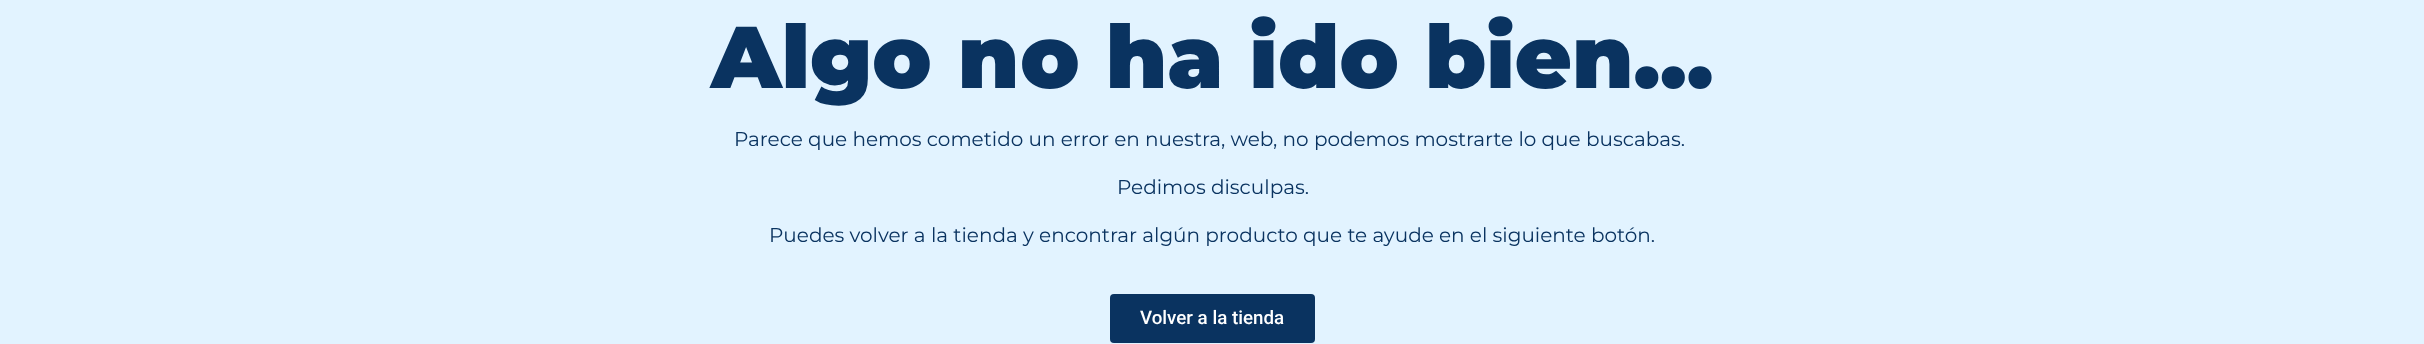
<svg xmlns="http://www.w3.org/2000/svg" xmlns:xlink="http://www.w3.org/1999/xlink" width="2424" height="344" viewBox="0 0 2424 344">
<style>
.cls-1{font:900 87.5px Montserrat;fill:#0a3360}
.cls-2{font:20px Montserrat;fill:#0a3360}
.cls-3{font:500 18.75px Roboto;fill:#ffffff}
</style>
<rect width="100%" height="100%" fill="#e2f3ff"/>
<rect fill="#0a3360" x="1110" y="294" width="205" height="49" rx="4"/>
<text class="cls-1" x="711" y="88">Algo no ha ido bien...</text>
<text class="cls-2" x="734" y="146">Parece que hemos cometido un error en nuestra, web, no podemos mostrarte lo que buscabas.</text>
<text class="cls-2" x="1117" y="194">Pedimos disculpas.</text>
<text class="cls-2" x="769" y="242">Puedes volver a la tienda y encontrar algún producto que te ayude en el siguiente botón.</text>
<text class="cls-3" x="1140" y="324">Volver a la tienda</text>
</svg>
